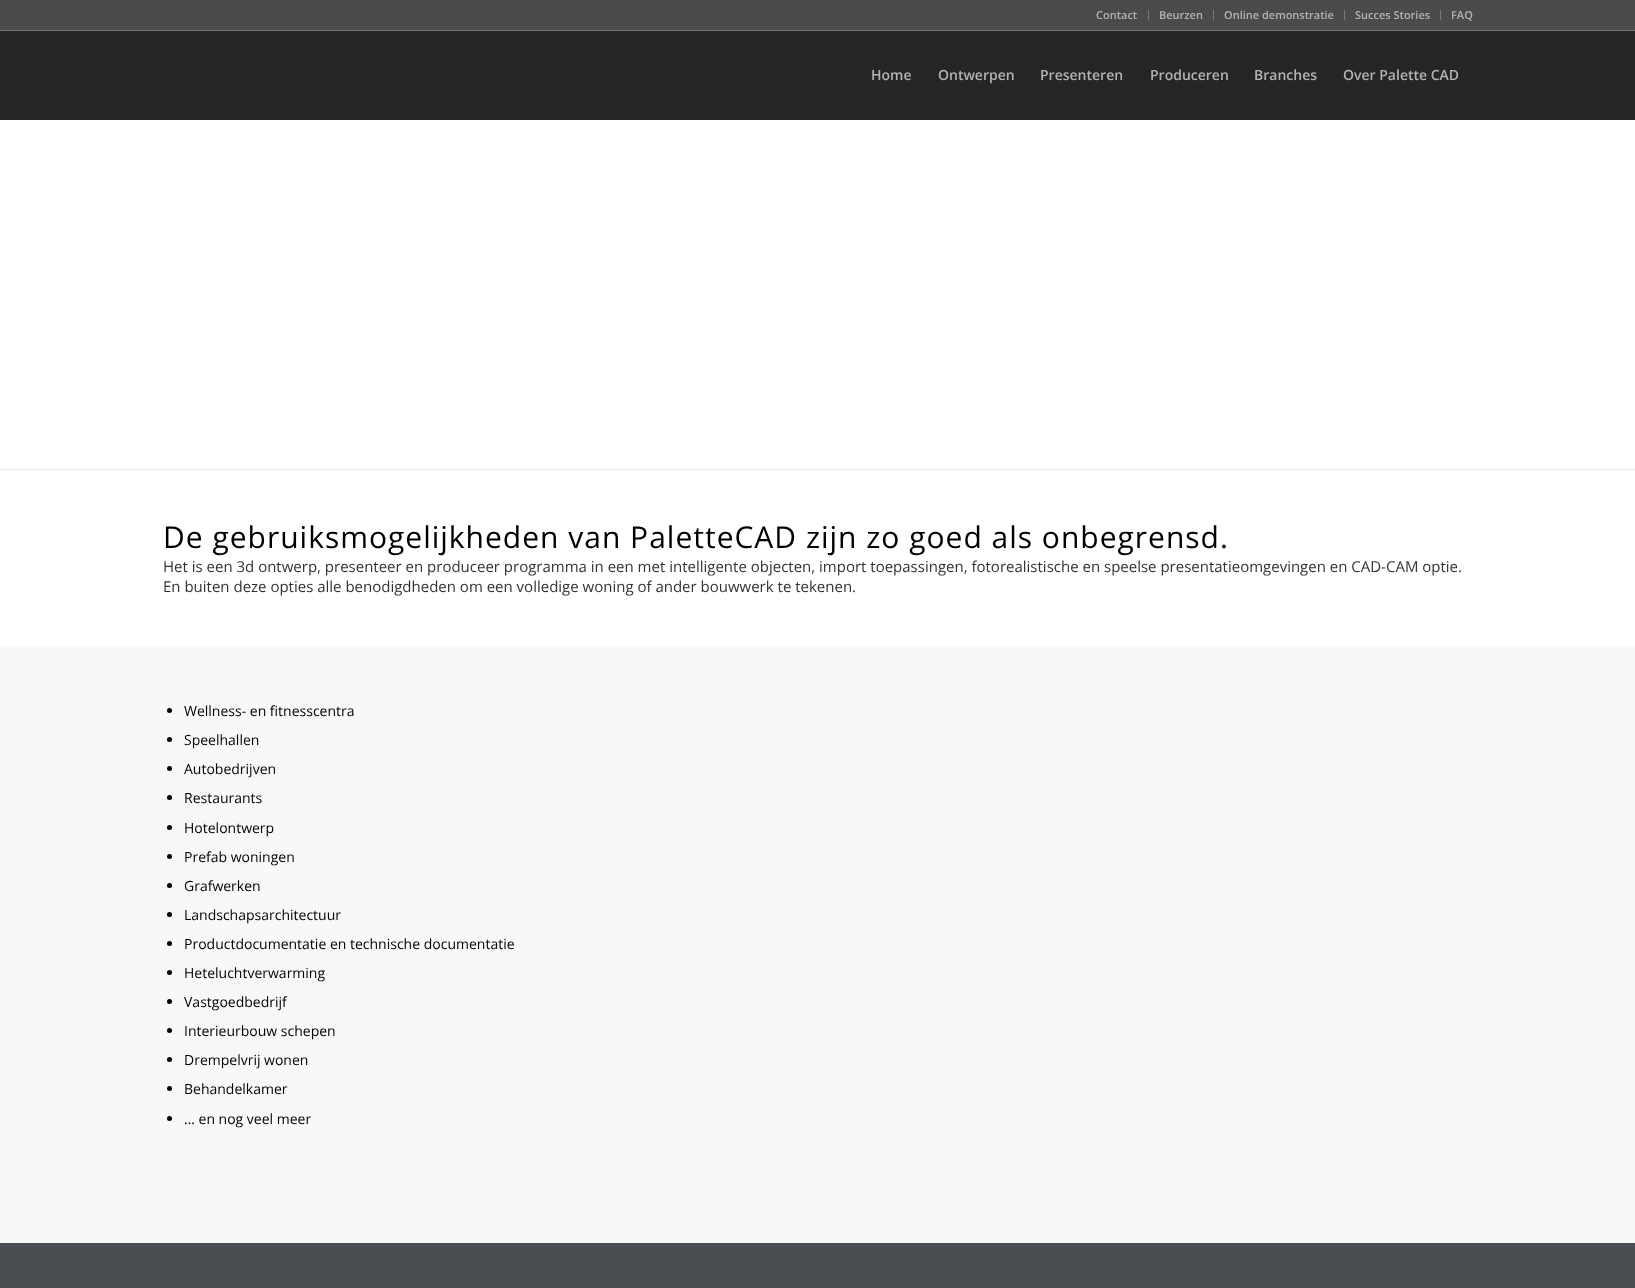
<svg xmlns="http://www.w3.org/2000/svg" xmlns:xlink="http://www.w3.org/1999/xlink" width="1635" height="1288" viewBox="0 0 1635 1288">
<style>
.cls-1{font:600 11px Open Sans;fill:#b3b3b3}
.cls-2{font:600 14px Open Sans;fill:#b3b3b3}
.cls-3{font:30px Open Sans;letter-spacing:1px;fill:#000000}
.cls-4{font:15px Open Sans;fill:#333333}
.cls-5{font:14px Open Sans;fill:#000000}
</style>
<rect width="100%" height="100%" fill="#ffffff"/>
<rect fill="#4b4b4b" x="0" y="0" width="1635" height="30"/>
<rect fill="#787878" x="0" y="30" width="1635" height="1"/>
<rect fill="#787878" x="1148" y="10" width="1" height="10"/>
<rect fill="#787878" x="1213" y="10" width="1" height="10"/>
<rect fill="#787878" x="1344" y="10" width="1" height="10"/>
<rect fill="#787878" x="1440" y="10" width="1" height="10"/>
<rect fill="#262626" x="0" y="31" width="1635" height="89"/>
<rect fill="#ebebeb" x="0" y="469" width="1635" height="1"/>
<rect fill="#f8f8f8" x="0" y="646" width="1635" height="597"/>
<circle fill="#000000" cx="169.5" cy="710.5" r="2.5"/>
<circle fill="#000000" cx="169.5" cy="739.5" r="2.5"/>
<circle fill="#000000" cx="169.5" cy="768.5" r="2.5"/>
<circle fill="#000000" cx="169.5" cy="797.5" r="2.5"/>
<circle fill="#000000" cx="169.5" cy="827.5" r="2.5"/>
<circle fill="#000000" cx="169.5" cy="856.5" r="2.5"/>
<circle fill="#000000" cx="169.5" cy="885.5" r="2.5"/>
<circle fill="#000000" cx="169.5" cy="914.5" r="2.5"/>
<circle fill="#000000" cx="169.5" cy="943.5" r="2.5"/>
<circle fill="#000000" cx="169.5" cy="972.5" r="2.5"/>
<circle fill="#000000" cx="169.5" cy="1001.5" r="2.5"/>
<circle fill="#000000" cx="169.5" cy="1030.5" r="2.5"/>
<circle fill="#000000" cx="169.5" cy="1059.5" r="2.5"/>
<circle fill="#000000" cx="169.5" cy="1088.5" r="2.5"/>
<circle fill="#000000" cx="169.5" cy="1118.5" r="2.5"/>
<rect fill="#494c50" x="0" y="1243" width="1635" height="45"/>
<text class="cls-1" x="1096" y="19">Contact</text>
<text class="cls-1" x="1159" y="19">Beurzen</text>
<text class="cls-1" x="1224" y="19">Online demonstratie</text>
<text class="cls-1" x="1355" y="19">Succes Stories</text>
<text class="cls-1" x="1451" y="19">FAQ</text>
<text class="cls-2" x="871" y="80">Home</text>
<text class="cls-2" x="938" y="80">Ontwerpen</text>
<text class="cls-2" x="1040" y="80">Presenteren</text>
<text class="cls-2" x="1150" y="80">Produceren</text>
<text class="cls-2" x="1254" y="80">Branches</text>
<text class="cls-2" x="1343" y="80">Over Palette CAD</text>
<text class="cls-3" x="163" y="548">De gebruiksmogelijkheden van PaletteCAD zijn zo goed als onbegrensd.</text>
<text class="cls-4"><tspan x="163" y="572">Het is een 3d ontwerp, presenteer en produceer programma in een met intelligente objecten, import toepassingen, fotorealistische en speelse presentatieomgevingen en CAD-CAM optie.</tspan><tspan x="163" y="592">En buiten deze opties alle benodigdheden om een volledige woning of ander bouwwerk te tekenen.</tspan></text>
<text class="cls-5" x="184" y="716">Wellness- en fitnesscentra</text>
<text class="cls-5" x="184" y="745">Speelhallen</text>
<text class="cls-5" x="184" y="774">Autobedrijven</text>
<text class="cls-5" x="184" y="803">Restaurants</text>
<text class="cls-5" x="184" y="833">Hotelontwerp</text>
<text class="cls-5" x="184" y="862">Prefab woningen</text>
<text class="cls-5" x="184" y="891">Grafwerken</text>
<text class="cls-5" x="184" y="920">Landschapsarchitectuur</text>
<text class="cls-5" x="184" y="949">Productdocumentatie en technische documentatie</text>
<text class="cls-5" x="184" y="978">Heteluchtverwarming</text>
<text class="cls-5" x="184" y="1007">Vastgoedbedrijf</text>
<text class="cls-5" x="184" y="1036">Interieurbouw schepen</text>
<text class="cls-5" x="184" y="1065">Drempelvrij wonen</text>
<text class="cls-5" x="184" y="1094">Behandelkamer</text>
<text class="cls-5" x="184" y="1124">… en nog veel meer</text>
</svg>
